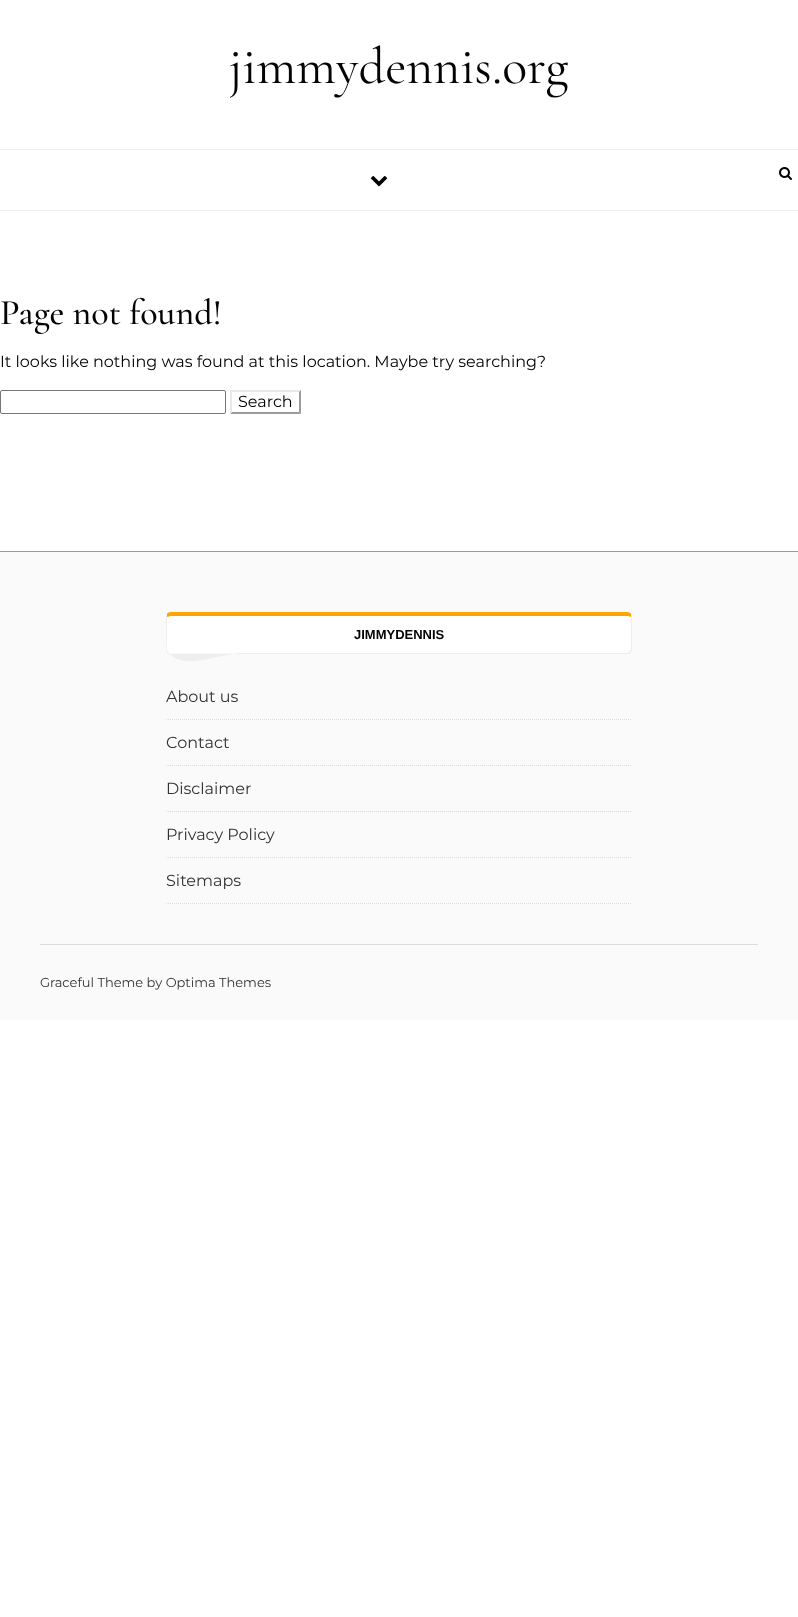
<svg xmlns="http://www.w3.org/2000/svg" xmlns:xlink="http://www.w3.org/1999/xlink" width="798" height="1617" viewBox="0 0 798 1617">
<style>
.cls-1{font:52px Cormorant Garamond;fill:#030303}
.cls-2{font:500 36px Cormorant Garamond;fill:#030303}
.cls-3{font:100 16px Montserrat;fill:#030303}
.cls-4{font:bold 13px Liberation Sans;fill:#030303}
.cls-5{font:100 16px Montserrat;fill:#333333}
.cls-6{font:100 13px Montserrat;fill:#333333}
</style>
<rect width="100%" height="100%" fill="#ffffff"/>
<rect fill="#eeeeee" x="0" y="149" width="798" height="1"/>
<rect fill="#eeeeee" x="0" y="210" width="798" height="1"/>
<image xlink:href="image0.png" x="779" y="167" width="13" height="13"/>
<image xlink:href="image1.png" x="370" y="176" width="18" height="11"/>
<rect fill="none" stroke="#767676" x="0.5" y="390.5" width="225" height="23" rx="1.5"/>
<path fill="#e8e8e8" d="M230 390H301L299 392H232Z"/>
<path fill="#9b9b9b" d="M301 390V414L299 412V392Z"/>
<path fill="#9b9b9b" d="M301 414H230L232 412H299Z"/>
<path fill="#e8e8e8" d="M230 414V390L232 392V412Z"/>
<rect fill="#fafafa" x="0" y="552" width="798" height="468"/>
<rect fill="#999999" x="0" y="551" width="798" height="1"/>
<rect fill="#e0dbdb" x="40" y="944" width="718" height="1"/>
<path fill="#ffffff" d="M171 616H628L631 617V650L629 652L627 653H169C165 651 167 642 167 638V617Z"/>
<path fill="#ffa500" d="M171 612C169 612 167 613 167 614V617L171 616H628L631 617V614C631 613 629 612 627 612Z"/>
<path fill="#eeeeee" d="M632 649V617C632 616 632 615 631.5 614.5L631 617V650L629.5 651.5L630.5 652.5C631.5 652 632 650.5 632 649Z"/>
<path fill="#eeeeee" d="M171 654H627C628 654 630 654 631 653L630 652L627 653H245C219 653 184 672 168 652L167 653C168 654 170 654 171 654Z"/>
<path fill="#eeeeee" d="M166 617V649C166 650.5 166.5 652 167.5 652.5L168 652C167 651 166.5 649 166.5 647.5L167 638.5V617L166.5 614.5Z"/>
<path fill="none" stroke="#e0dbdb" stroke-dasharray="1 1" d="M166 719.5H632"/>
<path fill="none" stroke="#e0dbdb" stroke-dasharray="1 1" d="M166 765.5H632"/>
<path fill="none" stroke="#e0dbdb" stroke-dasharray="1 1" d="M166 811.5H632"/>
<path fill="none" stroke="#e0dbdb" stroke-dasharray="1 1" d="M166 857.5H632"/>
<path fill="none" stroke="#e0dbdb" stroke-dasharray="1 1" d="M166 903.5H632"/>
<text class="cls-1" x="229" y="83">jimmydennis.org</text>
<text class="cls-2" x="0" y="324">Page not found!</text>
<text class="cls-3" x="0" y="367">It looks like nothing was found at this location. Maybe try searching?</text>
<text class="cls-3" x="238" y="407">Search</text>
<text class="cls-4" x="354" y="639">JIMMYDENNIS</text>
<text class="cls-5" x="166" y="702">About us</text>
<text class="cls-5" x="166" y="748">Contact</text>
<text class="cls-5" x="166" y="794">Disclaimer</text>
<text class="cls-5" x="166" y="840">Privacy Policy</text>
<text class="cls-5" x="166" y="886">Sitemaps</text>
<text class="cls-6" x="40" y="987">Graceful Theme by Optima Themes</text>
</svg>
